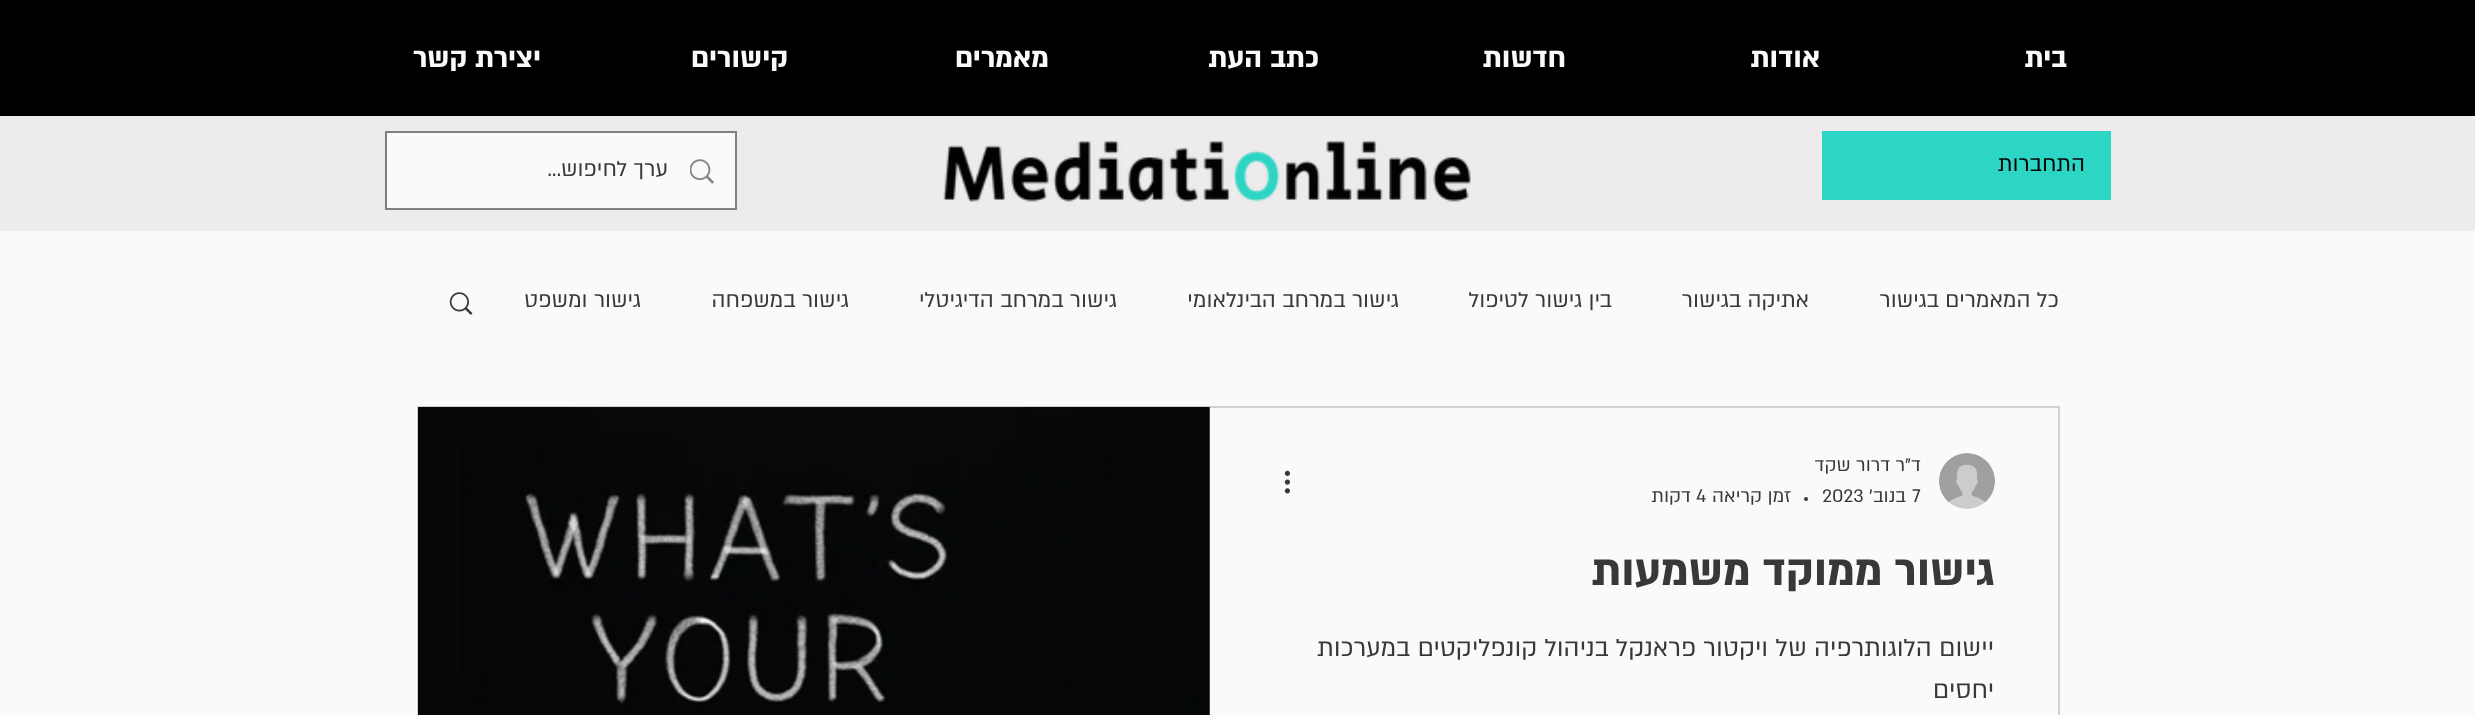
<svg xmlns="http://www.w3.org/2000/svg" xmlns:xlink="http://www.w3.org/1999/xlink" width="2475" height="715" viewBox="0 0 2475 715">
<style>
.cls-1{font:bold 31.5px 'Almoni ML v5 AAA';direction:rtl;fill:#fafafa}
.cls-2{font:24.5px 'Almoni ML v5 AAA';direction:rtl;fill:#000000}
.cls-3{font:24.5px 'Almoni ML v5 AAA';direction:rtl;fill:#383838}
.cls-4{font:21px 'Almoni ML v5 AAA';direction:rtl;fill:#383838}
.cls-5{font:21px 'Almoni ML v5 AAA';fill:#383838}
.cls-6{font:bold 49px 'Almoni ML v5 AAA';direction:rtl;fill:#383838}
.cls-7{font:28px 'Almoni ML v5 AAA';direction:rtl;fill:#383838}
</style>
<rect width="100%" height="100%" fill="#fafafa"/>
<rect fill="#000000" x="0" y="0" width="2475" height="116"/>
<rect fill="#edebeb" x="0" y="116" width="2475" height="115"/>
<rect fill="#2dd5c4" x="1822" y="131" width="289" height="69"/>
<image xlink:href="image0.png" x="943" y="140" width="528" height="62"/>
<rect fill="none" stroke="#808080" stroke-width="2" x="386" y="132" width="350" height="77"/>
<rect fill="#fafafa" x="387" y="133" width="348" height="75"/>
<image xlink:href="image1.png" x="690" y="159" width="24" height="25"/>
<image xlink:href="image2.png" x="449" y="292" width="24" height="23"/>
<rect fill="none" stroke="#d2d1d1" stroke-width="2" x="418" y="407" width="1641" height="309"/>
<image xlink:href="image3.png" x="1939" y="453" width="56" height="56"/>
<circle fill="#383838" cx="1806" cy="499" r="2"/>
<image xlink:href="image4.png" x="1284" y="470" width="6" height="24"/>
<image xlink:href="image5.png" x="418" y="407" width="792" height="308"/>
<image xlink:href="image6.png" x="461" y="408" width="748" height="307"/>
<text class="cls-1" x="2067" y="67">בית</text>
<text class="cls-1" x="1820" y="67">אודות</text>
<text class="cls-1" x="1566" y="67">חדשות</text>
<text class="cls-1" x="1319" y="67">כתב העת</text>
<text class="cls-1" x="1049" y="67">מאמרים</text>
<text class="cls-1" x="788" y="67">קישורים</text>
<text class="cls-1" x="541" y="67">יצירת קשר</text>
<text class="cls-2" x="2085" y="171">התחברות</text>
<text class="cls-3" x="668" y="176">ערך לחיפוש...</text>
<text class="cls-3" x="2059" y="307">כל המאמרים בגישור</text>
<text class="cls-3" x="1809" y="307">אתיקה בגישור</text>
<text class="cls-3" x="1612" y="307">בין גישור לטיפול</text>
<text class="cls-3" x="1399" y="307">גישור במרחב הבינלאומי</text>
<text class="cls-3" x="1117" y="307">גישור במרחב הדיגיטלי</text>
<text class="cls-3" x="849" y="307">גישור במשפחה</text>
<text class="cls-3" x="641" y="307">גישור ומשפט</text>
<text class="cls-4" x="1921" y="471">ד"ר דרור שקד</text>
<text class="cls-5" x="1912" y="502">7</text>
<text class="cls-4" x="1906" y="502">בנוב׳</text>
<text class="cls-5" x="1822" y="502">2023</text>
<text class="cls-4" x="1791" y="502">זמן קריאה</text>
<text class="cls-5" x="1696" y="502">4</text>
<text class="cls-4" x="1691" y="502">דקות</text>
<text class="cls-6" x="1994" y="585">גישור ממוקד משמעות</text>
<text class="cls-7"><tspan x="1994" y="656">יישום הלוגותרפיה של ויקטור פראנקל בניהול קונפליקטים במערכות</tspan><tspan x="1994" y="698">יחסים</tspan></text>
</svg>
